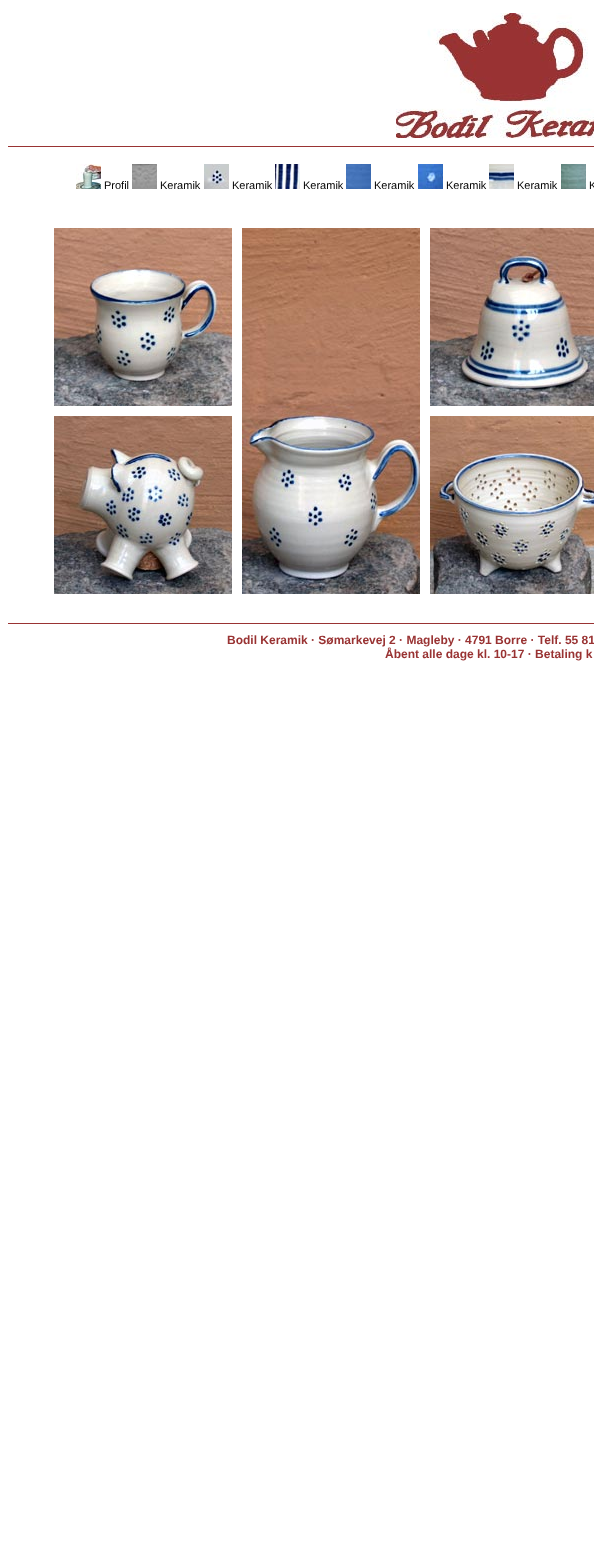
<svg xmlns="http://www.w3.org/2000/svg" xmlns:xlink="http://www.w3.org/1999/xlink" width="594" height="1552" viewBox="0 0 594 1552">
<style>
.cls-1{font:11px Liberation Sans;fill:#000000}
.cls-2{font:bold 12px Liberation Sans;fill:#993333}
</style>
<rect width="100%" height="100%" fill="#ffffff"/>
<image xlink:href="image0.png" x="396" y="13" width="198" height="125"/>
<rect fill="#993333" x="8" y="146" width="586" height="1"/>
<image xlink:href="image1.png" x="76" y="164" width="25" height="25"/>
<image xlink:href="image2.png" x="132" y="164" width="25" height="25"/>
<image xlink:href="image3.png" x="204" y="164" width="25" height="25"/>
<image xlink:href="image4.png" x="275" y="164" width="25" height="25"/>
<image xlink:href="image5.png" x="346" y="164" width="25" height="25"/>
<image xlink:href="image6.png" x="418" y="164" width="25" height="25"/>
<image xlink:href="image7.png" x="489" y="164" width="25" height="25"/>
<image xlink:href="image8.png" x="561" y="164" width="25" height="25"/>
<image xlink:href="image9.png" x="54" y="228" width="178" height="178"/>
<image xlink:href="image10.png" x="242" y="228" width="178" height="366"/>
<image xlink:href="image11.png" x="430" y="228" width="164" height="178"/>
<image xlink:href="image12.png" x="54" y="416" width="178" height="178"/>
<image xlink:href="image13.png" x="430" y="416" width="164" height="178"/>
<rect fill="#993333" x="8" y="623" width="586" height="1"/>
<text class="cls-1" x="104" y="189">Profil</text>
<text class="cls-1" x="160" y="189">Keramik</text>
<text class="cls-1" x="232" y="189">Keramik</text>
<text class="cls-1" x="303" y="189">Keramik</text>
<text class="cls-1" x="374" y="189">Keramik</text>
<text class="cls-1" x="446" y="189">Keramik</text>
<text class="cls-1" x="517" y="189">Keramik</text>
<text class="cls-1" x="589" y="189">K</text>
<text class="cls-2" x="227" y="644">Bodil Keramik · Sømarkevej 2 · Magleby · 4791 Borre · Telf. 55 81</text>
<text class="cls-2" x="385" y="658">Åbent alle dage kl. 10-17 · Betaling k</text>
</svg>
